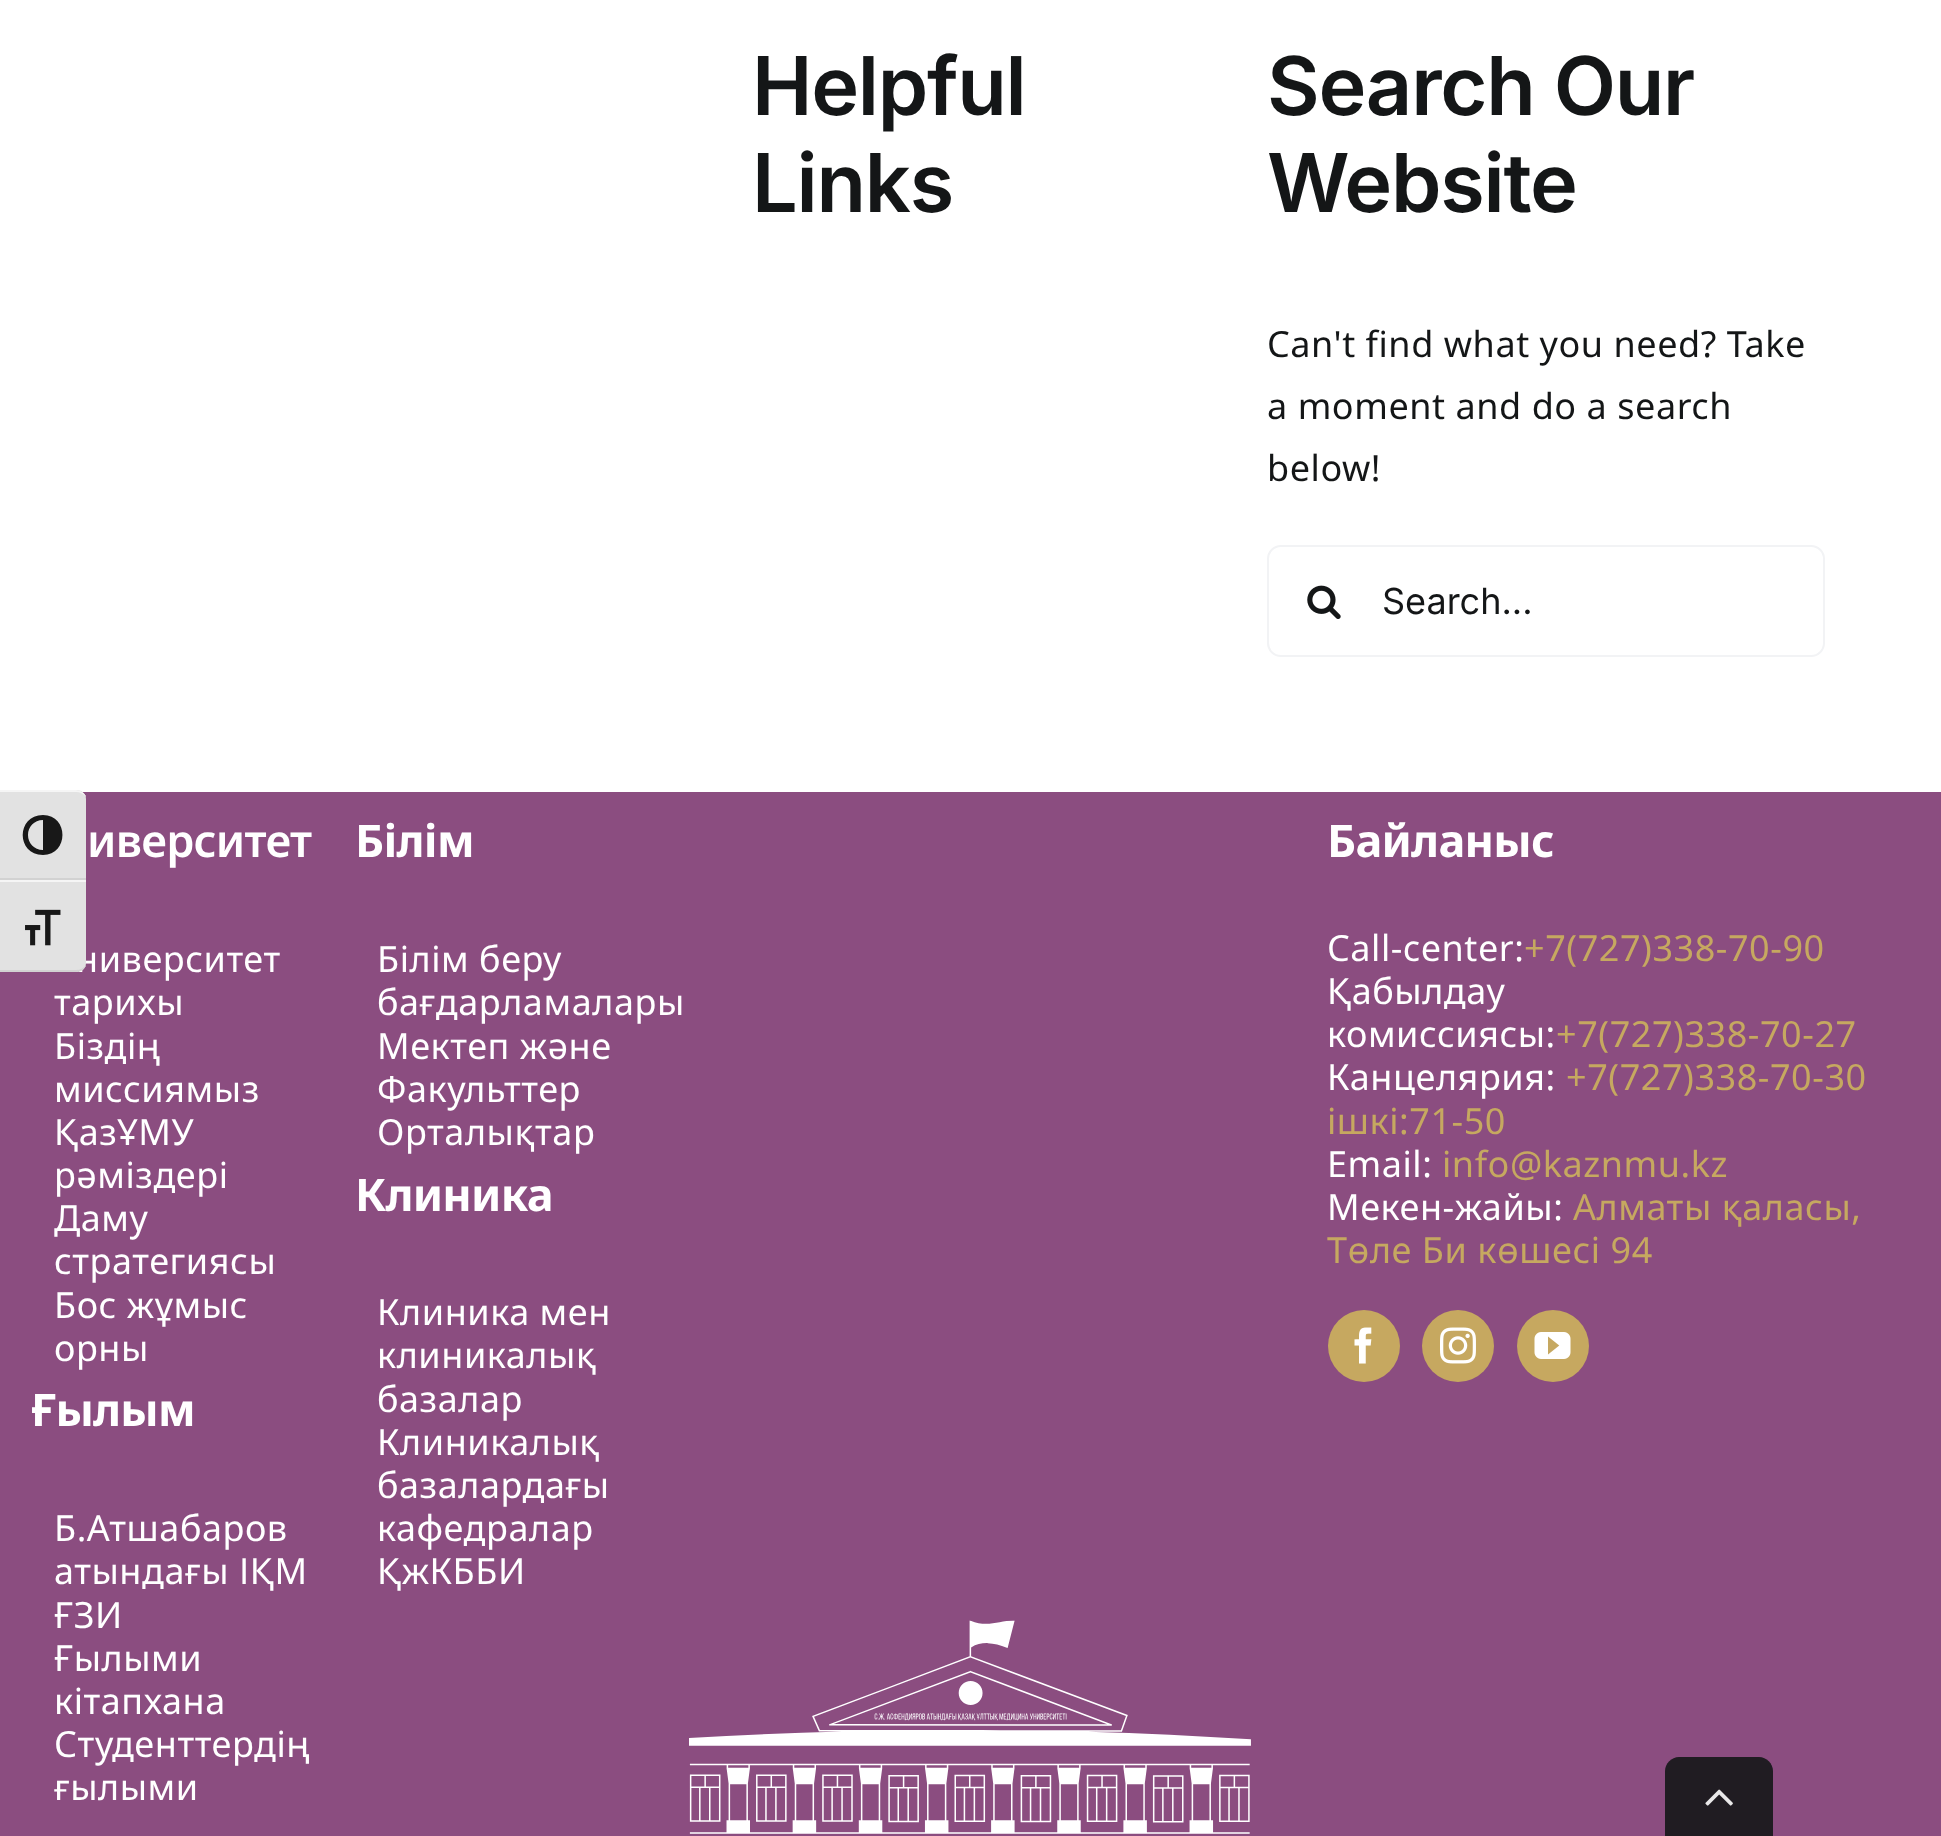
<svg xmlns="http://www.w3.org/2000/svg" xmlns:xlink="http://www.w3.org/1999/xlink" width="1941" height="1836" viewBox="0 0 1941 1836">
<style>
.cls-1{font:600 81px Inter;letter-spacing:-1.25px;fill:#141617}
.cls-2{font:36px Noto Sans;letter-spacing:0.55px;fill:#141617}
.cls-3{font:36px Inter;fill:#141617}
.cls-4{font:600 45px Noto Sans;letter-spacing:-0.75px;fill:#ffffff}
.cls-5{font:36px Noto Sans;letter-spacing:0.55px;fill:#ffffff}
.cls-6{font:bold 45px Noto Sans;letter-spacing:-0.75px;fill:#ffffff}
.cls-7{font:36px Noto Sans;letter-spacing:0.55px;fill:#c6a860}
</style>
<rect width="100%" height="100%" fill="#ffffff"/>
<rect fill="none" stroke="#f2f3f5" stroke-width="2" x="1268" y="546" width="556" height="110" rx="13"/>
<image xlink:href="image0.png" x="1307" y="585" width="34" height="34"/>
<rect fill="#8b4d80" x="0" y="792" width="1941" height="1044"/>
<circle fill="#c6a860" cx="1364" cy="1346" r="36"/>
<image xlink:href="image1.png" x="1354" y="1327" width="18" height="37"/>
<circle fill="#c6a860" cx="1458" cy="1346" r="36"/>
<image xlink:href="image2.png" x="1440" y="1327" width="36" height="37"/>
<circle fill="#c6a860" cx="1553" cy="1346" r="36"/>
<image xlink:href="image3.png" x="1534" y="1332" width="37" height="27"/>
<image xlink:href="image4.png" x="689" y="1620" width="562" height="214"/>
<path fill="#e2e2e2" d="M0 790H77C82 790 86 794 86 799V880H0Z"/>
<path fill="#f5f5f5" d="M0 792H76C80 792 84 794 86 797V796C84 793 80 790 76 790H0Z"/>
<rect fill="#d2d2d2" x="0" y="878" width="86" height="2"/>
<path fill="#181818" d="M43 815C16 815 16 855 43 855C69 855 69 815 43 815ZM28 835C28 827 34 820 43 820V850C34 850 28 843 28 835Z"/>
<path fill="#201c22" d="M1679 1757H1759C1766.5 1757 1773 1763.5 1773 1771V1836H1665V1771C1665 1763.5 1671.5 1757 1679 1757Z"/>
<image xlink:href="image6.png" x="1705" y="1789" width="28" height="17"/>
<text class="cls-1"><tspan x="752" y="115">Helpful</tspan><tspan x="752" y="212">Links</tspan></text>
<text class="cls-1"><tspan x="1267" y="115">Search Our</tspan><tspan x="1267" y="212">Website</tspan></text>
<text class="cls-2"><tspan x="1267" y="357">Can't find what you need? Take</tspan><tspan x="1267" y="419">a moment and do a search</tspan><tspan x="1267" y="481">below!</tspan></text>
<text class="cls-3" x="1382" y="614">Search...</text>
<text class="cls-4" x="87" y="857">иверситет</text>
<text class="cls-5" x="76" y="972">ниверситет</text>
<text class="cls-5"><tspan x="54" y="1015">тарихы</tspan><tspan x="54" y="1059">Біздің</tspan><tspan x="54" y="1102">миссиямыз</tspan><tspan x="54" y="1145">ҚазҰМУ</tspan><tspan x="54" y="1188">рәміздері</tspan><tspan x="54" y="1231">Даму</tspan><tspan x="54" y="1274">стратегиясы</tspan><tspan x="54" y="1318">Бос жұмыс</tspan><tspan x="54" y="1361">орны</tspan></text>
<text class="cls-6" x="31" y="1426">Ғылым</text>
<text class="cls-5"><tspan x="54" y="1541">Б.Атшабаров</tspan><tspan x="54" y="1584">атындағы ІҚМ</tspan><tspan x="54" y="1628">ҒЗИ</tspan><tspan x="54" y="1671">Ғылыми</tspan><tspan x="54" y="1714">кітапхана</tspan><tspan x="54" y="1757">Студенттердің</tspan><tspan x="54" y="1800">ғылыми</tspan></text>
<text class="cls-6" x="355" y="857">Білім</text>
<text class="cls-5"><tspan x="377" y="972">Білім беру</tspan><tspan x="377" y="1015">бағдарламалары</tspan><tspan x="377" y="1059">Мектеп және</tspan><tspan x="377" y="1102">Факульттер</tspan><tspan x="377" y="1145">Орталықтар</tspan></text>
<text class="cls-6" x="355" y="1211">Клиника</text>
<text class="cls-5"><tspan x="377" y="1325">Клиника мен</tspan><tspan x="377" y="1368">клиникалық</tspan><tspan x="377" y="1412">базалар</tspan><tspan x="377" y="1455">Клиникалық</tspan><tspan x="377" y="1498">базалардағы</tspan><tspan x="377" y="1541">кафедралар</tspan><tspan x="377" y="1584">ҚжКББИ</tspan></text>
<text class="cls-6" x="1327" y="857">Байланыс</text>
<text class="cls-5" x="1327" y="961">Call-center:</text>
<text class="cls-7" x="1524" y="961">+7(727)338-70-90</text>
<text class="cls-5"><tspan x="1327" y="1004">Қабылдау</tspan><tspan x="1327" y="1047">комиссиясы:</tspan></text>
<text class="cls-7" x="1556" y="1047">+7(727)338-70-27</text>
<text class="cls-5" x="1327" y="1090">Канцелярия:</text>
<text class="cls-7" x="1566" y="1090">+7(727)338-70-30</text>
<text class="cls-7" x="1327" y="1134">ішкі:71-50</text>
<text class="cls-5" x="1327" y="1177">Email:</text>
<text class="cls-7" x="1442" y="1177">info@kaznmu.kz</text>
<text class="cls-5" x="1327" y="1220">Мекен-жайы:</text>
<text class="cls-7" x="1573" y="1220">Алматы қаласы,</text>
<text class="cls-7" x="1327" y="1263">Төле Би көшесі 94</text>
<path fill="#e2e2e2" d="M0 880H86V963C86 968 82 972 77 972H0Z"/>
<rect fill="#f5f5f5" x="0" y="880" width="86" height="2"/>
<path fill="#d2d2d2" d="M0 970V972H76C80 972 84 969 86 966V965C84 968 80 970 76 970Z"/>
<image xlink:href="image5.png" x="25" y="909" width="36" height="37"/>
</svg>
